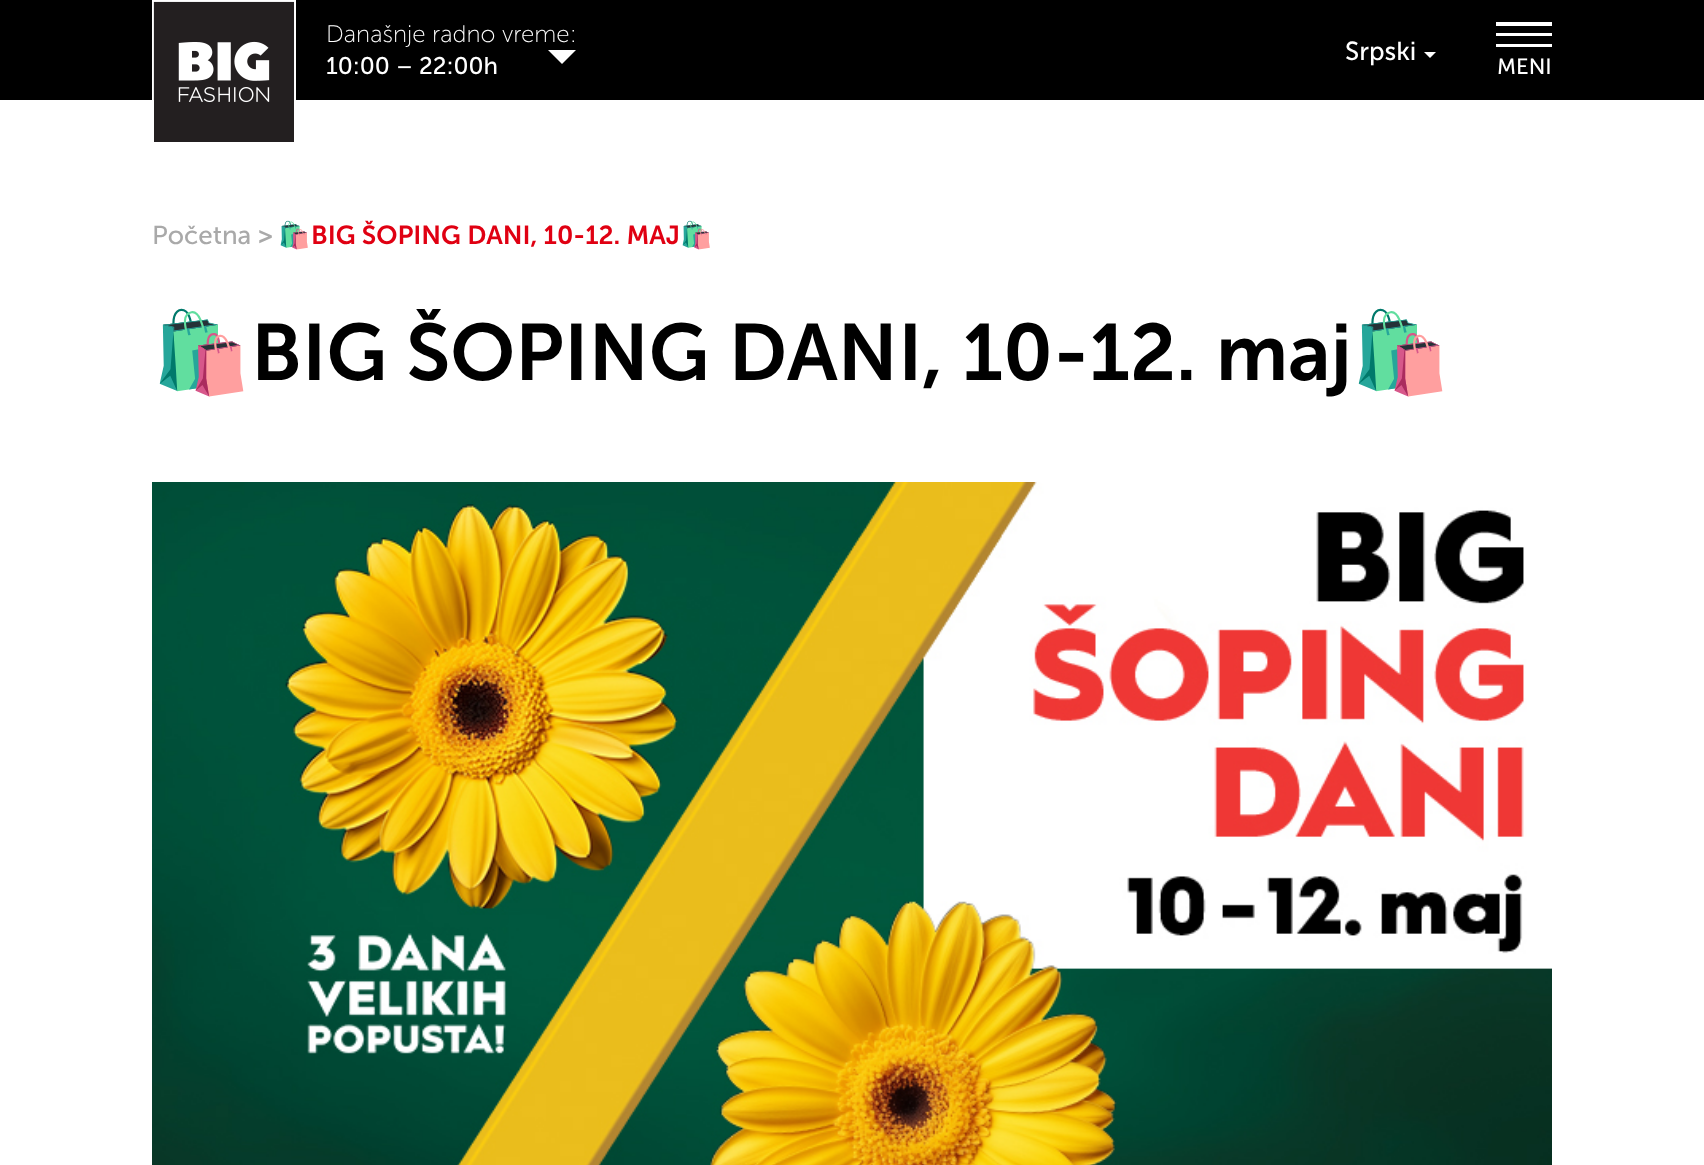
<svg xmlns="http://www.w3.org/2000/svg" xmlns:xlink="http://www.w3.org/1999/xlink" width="1704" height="1165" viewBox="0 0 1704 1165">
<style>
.cls-1{font:200 24px Museo Sans;fill:#ffffff}
.cls-2{font:24px Museo Sans;fill:#ffffff}
.cls-3{font:26px Museo Sans;fill:#ffffff}
.cls-4{font:22px Museo Sans;fill:#ffffff}
.cls-5{font:26px Museo Sans;fill:#a9a9a9}
.cls-6{font:600 26px Museo Sans;fill:#a9a9a9}
.cls-7{font:bold 26px Noto Color Emoji;fill:#e00012}
.cls-8{font:600 26px Museo Sans;fill:#e00012}
.cls-9{font:bold 79.5px Noto Color Emoji;fill:#000000}
.cls-10{font:600 79.5px Museo Sans;fill:#000000}
</style>
<rect width="100%" height="100%" fill="#ffffff"/>
<rect fill="#000000" x="0" y="0" width="1704" height="100"/>
<image xlink:href="image0.png" x="152" y="0" width="144" height="142"/>
<path fill="#ffffff" d="M548 50H576L562 64Z"/>
<path fill="#ffffff" d="M1424 52H1436L1430 58Z"/>
<path fill="#ffffff" d="M1496 22H1552V26H1496ZM1496 33H1552V36H1496ZM1496 44H1552V47H1496Z"/>
<image xlink:href="image1.png" x="152" y="482" width="1400" height="683"/>
<text class="cls-1" x="326" y="42">Današnje radno vreme:</text>
<text class="cls-2" x="326" y="74">10:00 – 22:00h</text>
<text class="cls-3" x="1345" y="60">Srpski</text>
<text class="cls-4" x="1497" y="74">MENI</text>
<text class="cls-5" x="152" y="244">Početna</text>
<text class="cls-6" x="258" y="244">&gt;</text>
<text class="cls-7" x="278" y="244">🛍️</text>
<text class="cls-8" x="311" y="244">BIG ŠOPING DANI, 10-12. MAJ</text>
<text class="cls-7" x="680" y="244">🛍️</text>
<text class="cls-9" x="152" y="380">🛍️</text>
<text class="cls-10" x="251" y="380">BIG ŠOPING DANI, 10-12. maj</text>
<text class="cls-9" x="1351" y="380">🛍️</text>
</svg>
